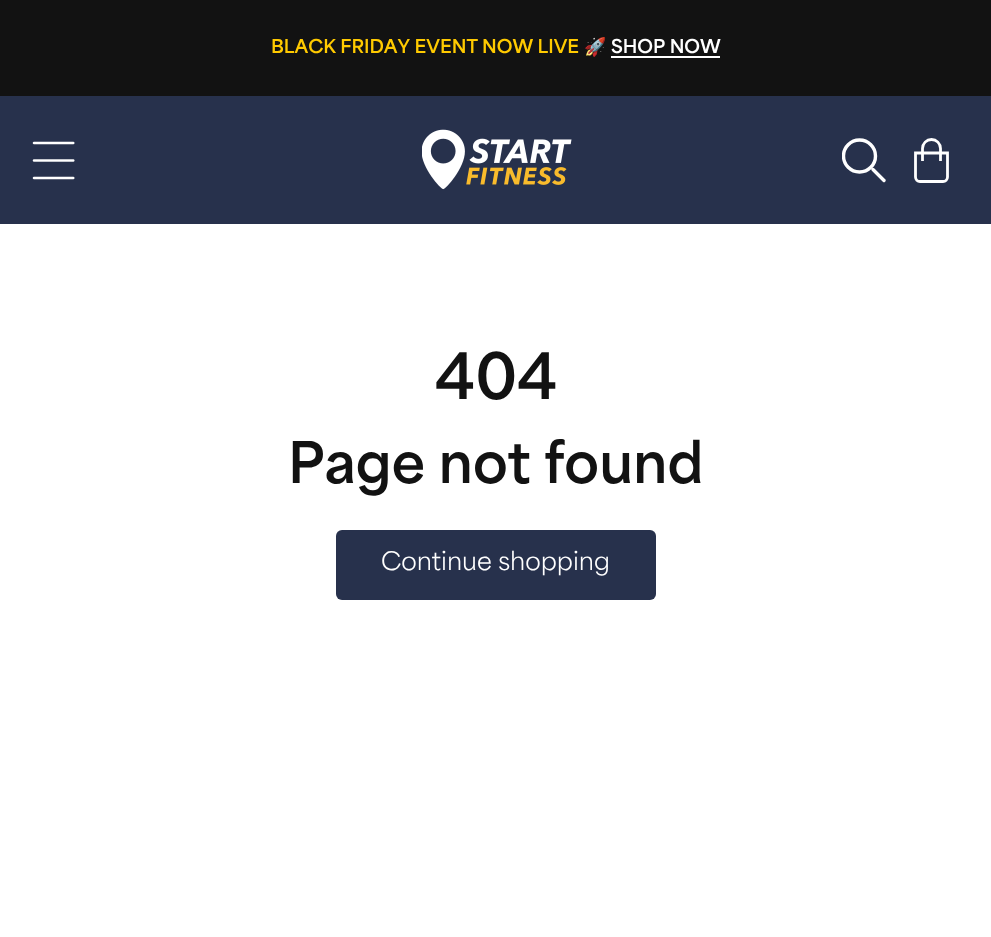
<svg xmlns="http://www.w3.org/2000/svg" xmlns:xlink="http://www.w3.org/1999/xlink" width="991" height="937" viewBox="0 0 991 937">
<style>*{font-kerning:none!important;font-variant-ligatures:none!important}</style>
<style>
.cls-1{font:bold 18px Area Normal;fill:#ffca00}
.cls-2{font:bold 18px Noto Color Emoji;fill:#ffca00}
.cls-3{font:bold 18px Area Normal;fill:#ffffff}
.cls-4{font:bold 60px Area Normal;fill:#121212}
.cls-5{font:bold 54px Area Normal;fill:#121212}
.cls-6{font:24px Area Normal;fill:#ffffff}
</style>
<defs>
<clipPath id="clip1"><rect x="842" y="138" width="45" height="45"/></clipPath>
</defs>
<rect width="100%" height="100%" fill="#ffffff"/>
<rect fill="#121212" x="0" y="0" width="991" height="96"/>
<rect fill="#ffffff" x="611" y="56" width="109" height="2"/>
<rect fill="#27314c" x="0" y="96" width="991" height="128"/>
<image xlink:href="image0.png" x="32" y="141" width="43" height="39"/>
<image xlink:href="image1.png" x="422" y="129" width="150" height="61"/>
<g clip-path="url(#clip1)">
<circle fill="none" stroke="#ffffff" stroke-width="3.4" cx="859.5" cy="156" r="16"/>
</g>
<path fill="none" stroke="#ffffff" stroke-width="3.4" stroke-linecap="round" d="M884 180.5L873 169.5"/>
<path fill="none" stroke="#ffffff" stroke-width="2.8" d="M922.5 161V148.5C922.5 143.5 926.5 139.5 931.5 139.5C936.5 139.5 940.5 143.5 940.5 148.5V161M915.5 153V177C915.5 179.5 917.5 181.5 920 181.5H943C945.5 181.5 947.5 179.5 947.5 177V153Z"/>
<rect fill="#27314c" x="336" y="530" width="320" height="70" rx="6"/>
<text class="cls-1" x="271" y="53">BLACK FRIDAY EVENT</text>
<text class="cls-1" x="482" y="53">NOW LIVE</text>
<text class="cls-2" x="584" y="53">🚀</text>
<text class="cls-3" x="611" y="53">SHOP NOW</text>
<text class="cls-4" x="435" y="399">404</text>
<text class="cls-5" x="288" y="483">Page not found</text>
<text class="cls-6" x="381" y="570">Continue shopping</text>
</svg>
